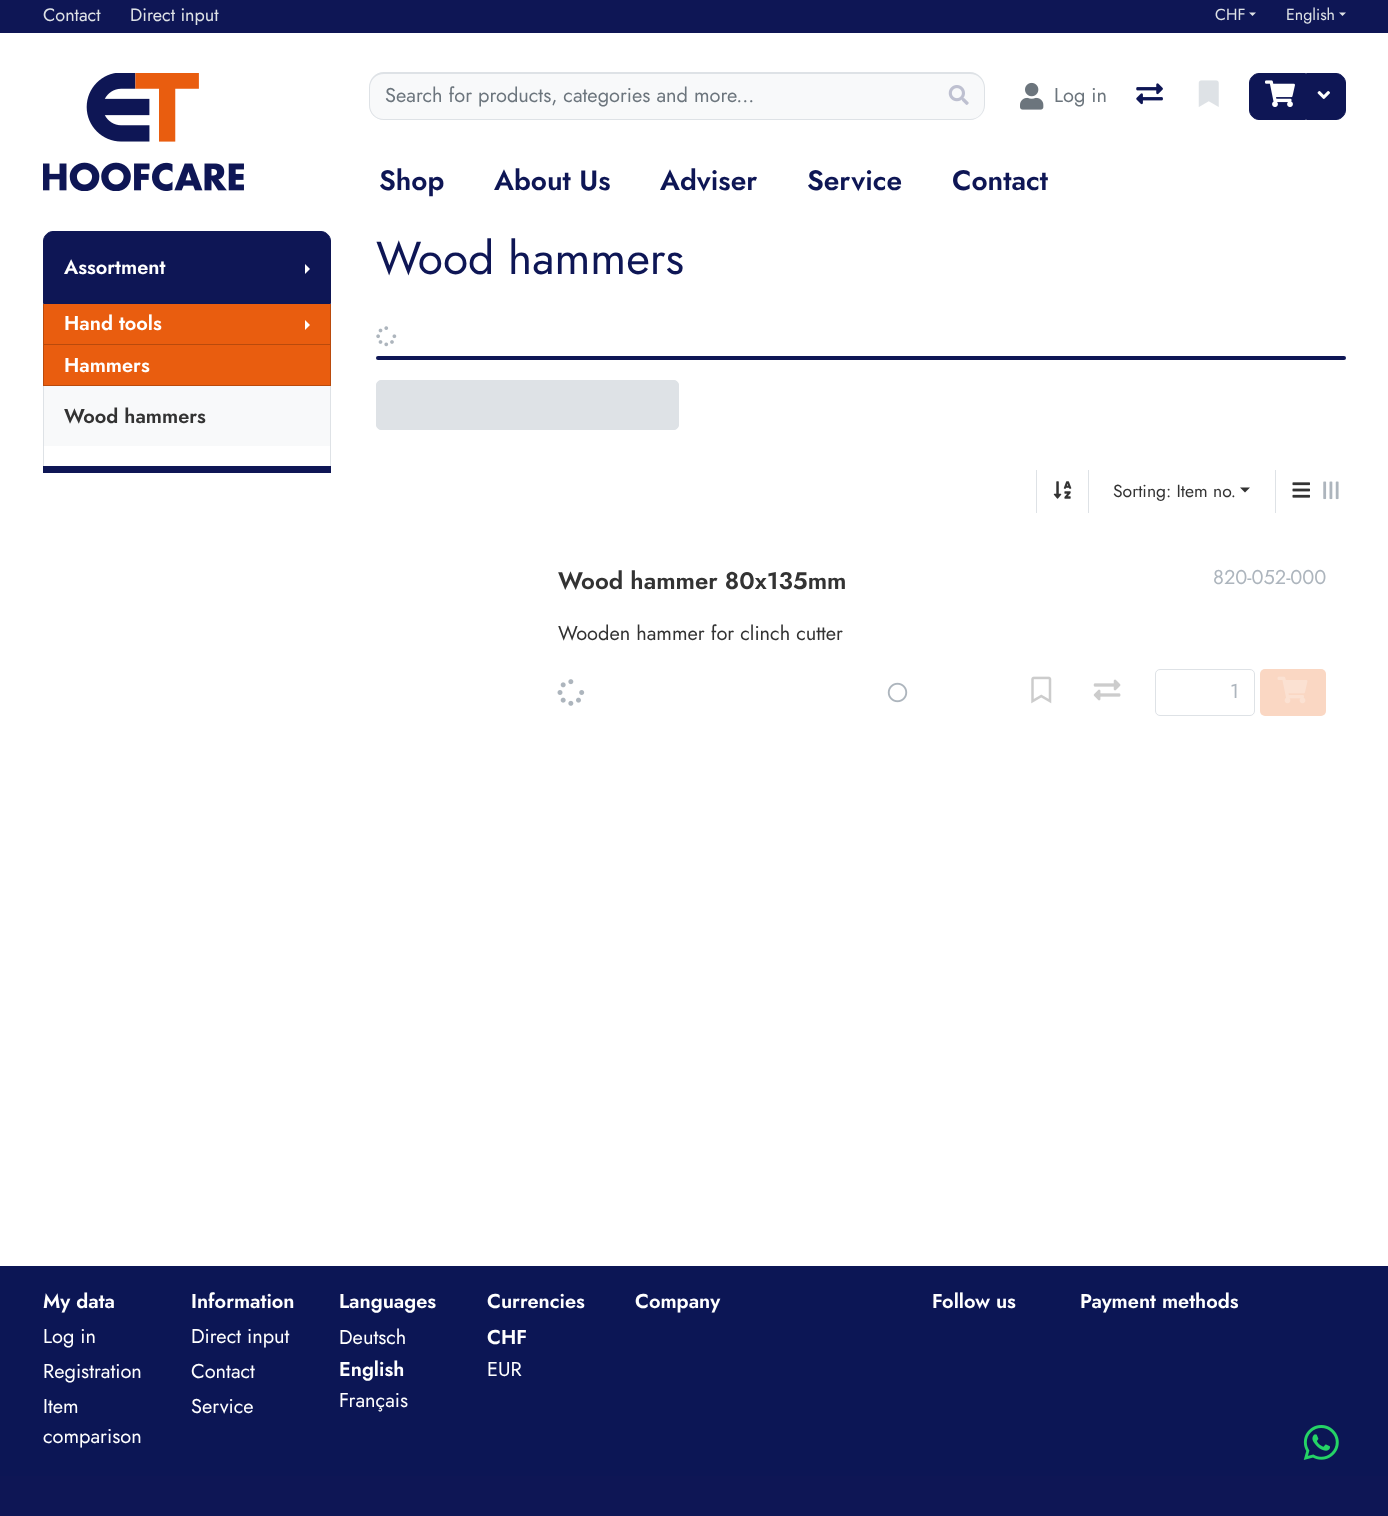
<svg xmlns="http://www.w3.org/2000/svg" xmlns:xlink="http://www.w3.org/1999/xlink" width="1388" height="1516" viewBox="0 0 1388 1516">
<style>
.cls-1{font:18px Jost;fill:#dee2e6}
.cls-2{font:16px Jost;fill:#dee2e6}
.cls-3{font:20px Jost;fill:#6c757d}
.cls-4{font:600 28px Jost;fill:#0e1655}
.cls-5{font:600 20px Jost;fill:#ffffff}
.cls-6{font:600 20px Jost;fill:#333333}
.cls-7{font:46px Jost;fill:#0e1655}
.cls-8{font:17.5px Jost;fill:#333333}
.cls-9{font:600 24px Jost;fill:#333333}
.cls-10{font:20px Jost;fill:#333333}
.cls-11{font:20px Jost;fill:#adb5bd}
.cls-12{font:20px Jost;fill:#ffffff}
</style>
<rect width="100%" height="100%" fill="#ffffff"/>
<rect fill="#0e1655" x="0" y="0" width="1388" height="33"/>
<path fill="#dee2e6" d="M1249 12.5H1256L1252.5 16Z"/>
<path fill="#dee2e6" d="M1339 12.5H1346L1342.5 16Z"/>
<image xlink:href="image0.png" x="43" y="73" width="201" height="118"/>
<path fill="#f8f9fa" d="M934 73H970C978.5 73 985 79.5 985 88V105C985 113.5 978.5 120 970 120H934Z"/>
<path fill="#dee2e6" fill-rule="evenodd" d="M934 72H970C978 72 985 79 985 88V105C985 113 978 120 970 120H934ZM934 74H970C978 74 984 80 984 88V105C984 113 978 119 970 119H934Z"/>
<path fill="#f8f9fa" d="M384 73H935V120H384C375.5 120 369 113.5 369 105V88C369 79.5 375.5 73 384 73Z"/>
<path fill="#dee2e6" fill-rule="evenodd" d="M384 72H935V120H384C375 120 369 113 369 105V88C369 79 375 72 384 72ZM384 74H935V119H384C376 119 370 113 370 105V88C370 80 376 74 384 74Z"/>
<image xlink:href="image1.png" x="948" y="85" width="21" height="20"/>
<image xlink:href="image2.png" x="1020" y="82" width="24" height="28"/>
<image xlink:href="image3.png" x="1136" y="83" width="27" height="22"/>
<image xlink:href="image4.png" x="1198" y="80" width="21" height="27"/>
<path fill="#0e1655" stroke="#0e1655" d="M1259 73.5H1305.5V119.5H1259C1254 119.5 1249.5 115 1249.5 110V83C1249.5 78 1254 73.5 1259 73.5Z"/>
<image xlink:href="image5.png" x="1265" y="80" width="30" height="27"/>
<path fill="#0e1655" stroke="#0e1655" d="M1306.5 73.5H1336C1341 73.5 1345.5 78 1345.5 83V110C1345.5 115 1341 119.5 1336 119.5H1306.5Z"/>
<image xlink:href="image6.png" x="1317" y="91" width="13" height="8"/>
<rect fill="#0e1655" x="43" y="466" width="288" height="7"/>
<path fill="#0e1655" stroke="#0e1655" d="M53 231.5H321C326 231.5 330.5 236 330.5 241V303.5H43.5V241C43.5 236 48 231.5 53 231.5Z"/>
<path fill="#ffffff" d="M305 274V264L310 269Z"/>
<rect fill="#e95d0f" x="44" y="304" width="286" height="40"/>
<rect fill="#b94a0c" x="330" y="304" width="1" height="82"/>
<rect fill="#b94a0c" x="43" y="344" width="288" height="1"/>
<rect fill="#b94a0c" x="43" y="304" width="1" height="41"/>
<path fill="#ffffff" d="M305 330V320L310 325Z"/>
<rect fill="#e95d0f" x="44" y="345" width="286" height="40"/>
<rect fill="#b94a0c" x="43" y="385" width="288" height="1"/>
<rect fill="#b94a0c" x="43" y="345" width="1" height="41"/>
<rect fill="#f8f9fa" x="44" y="386" width="286" height="60"/>
<rect fill="#dee2e6" x="330" y="386" width="1" height="80"/>
<rect fill="#dee2e6" x="43" y="386" width="1" height="80"/>
<image xlink:href="image7.png" x="376" y="326" width="21" height="21"/>
<rect fill="#0e1655" x="376" y="356" width="970" height="4" rx="2"/>
<rect fill="#dee2e6" stroke="#dee2e6" x="376.5" y="380.5" width="302" height="49" rx="4.5"/>
<rect fill="#dee2e6" x="1036" y="470" width="1" height="43"/>
<image xlink:href="image8.png" x="1053" y="481" width="19" height="18"/>
<rect fill="#dee2e6" x="1088" y="470" width="1" height="43"/>
<path fill="#333333" d="M1240 487.5H1250L1245 492.5Z"/>
<rect fill="#dee2e6" x="1275" y="470" width="1" height="43"/>
<image xlink:href="image9.png" x="1292" y="482" width="18" height="16"/>
<image xlink:href="image10.png" x="1323" y="481" width="16" height="19"/>
<image xlink:href="image11.png" x="557" y="679" width="28" height="27"/>
<image xlink:href="image12.png" x="887" y="682" width="21" height="21"/>
<image xlink:href="image13.png" x="1031" y="676" width="21" height="28"/>
<image xlink:href="image14.png" x="1093" y="679" width="28" height="22"/>
<rect fill="none" stroke="#dee2e6" x="1155.5" y="669.5" width="99" height="46" rx="4.5"/>
<rect fill="#fad7c3" x="1260" y="669" width="66" height="47" rx="5"/>
<image xlink:href="image15.png" x="1277" y="676" width="31" height="28"/>
<rect fill="#0c1655" x="0" y="1266" width="1388" height="210"/>
<rect fill="#0e1655" x="0" y="1476" width="1388" height="40"/>
<image xlink:href="image16.png" x="1303" y="1425" width="36" height="35"/>
<text class="cls-1" x="43" y="21">Contact</text>
<text class="cls-1" x="130" y="21">Direct input</text>
<text class="cls-2" x="1215" y="20">CHF</text>
<text class="cls-2" x="1286" y="20">English</text>
<text class="cls-3" x="385" y="102">Search for products, categories and more...</text>
<text class="cls-3" x="1054" y="102">Log in</text>
<text class="cls-4" x="379" y="190">Shop</text>
<text class="cls-4" x="494" y="190">About Us</text>
<text class="cls-4" x="660" y="190">Adviser</text>
<text class="cls-4" x="807" y="190">Service</text>
<text class="cls-4" x="952" y="190">Contact</text>
<text class="cls-5" x="64" y="274">Assortment</text>
<text class="cls-5" x="64" y="330">Hand tools</text>
<text class="cls-5" x="64" y="372">Hammers</text>
<text class="cls-6" x="64" y="423">Wood hammers</text>
<text class="cls-7" x="376" y="274">Wood hammers</text>
<text class="cls-8" x="1113" y="497">Sorting: Item no.</text>
<text class="cls-9" x="558" y="589">Wood hammer 80x135mm</text>
<text class="cls-10" x="558" y="640">Wooden hammer for clinch cutter</text>
<text class="cls-11" x="1230" y="698">1</text>
<text class="cls-11" x="1213" y="584">820-052-000</text>
<text class="cls-5" x="43" y="1308">My data</text>
<text class="cls-12"><tspan x="43" y="1343">Log in</tspan><tspan x="43" y="1378">Registration</tspan><tspan x="43" y="1413">Item</tspan><tspan x="43" y="1443">comparison</tspan></text>
<text class="cls-5" x="191" y="1308">Information</text>
<text class="cls-12"><tspan x="191" y="1343">Direct input</tspan><tspan x="191" y="1378">Contact</tspan><tspan x="191" y="1413">Service</tspan></text>
<text class="cls-5" x="339" y="1308">Languages</text>
<text class="cls-12" x="339" y="1344">Deutsch</text>
<text class="cls-5" x="339" y="1376">English</text>
<text class="cls-12" x="339" y="1407">Français</text>
<text class="cls-5"><tspan x="487" y="1308">Currencies</tspan><tspan x="487" y="1344">CHF</tspan></text>
<text class="cls-12" x="487" y="1376">EUR</text>
<text class="cls-5" x="635" y="1308">Company</text>
<text class="cls-5" x="932" y="1308">Follow us</text>
<text class="cls-5" x="1080" y="1308">Payment methods</text>
</svg>
